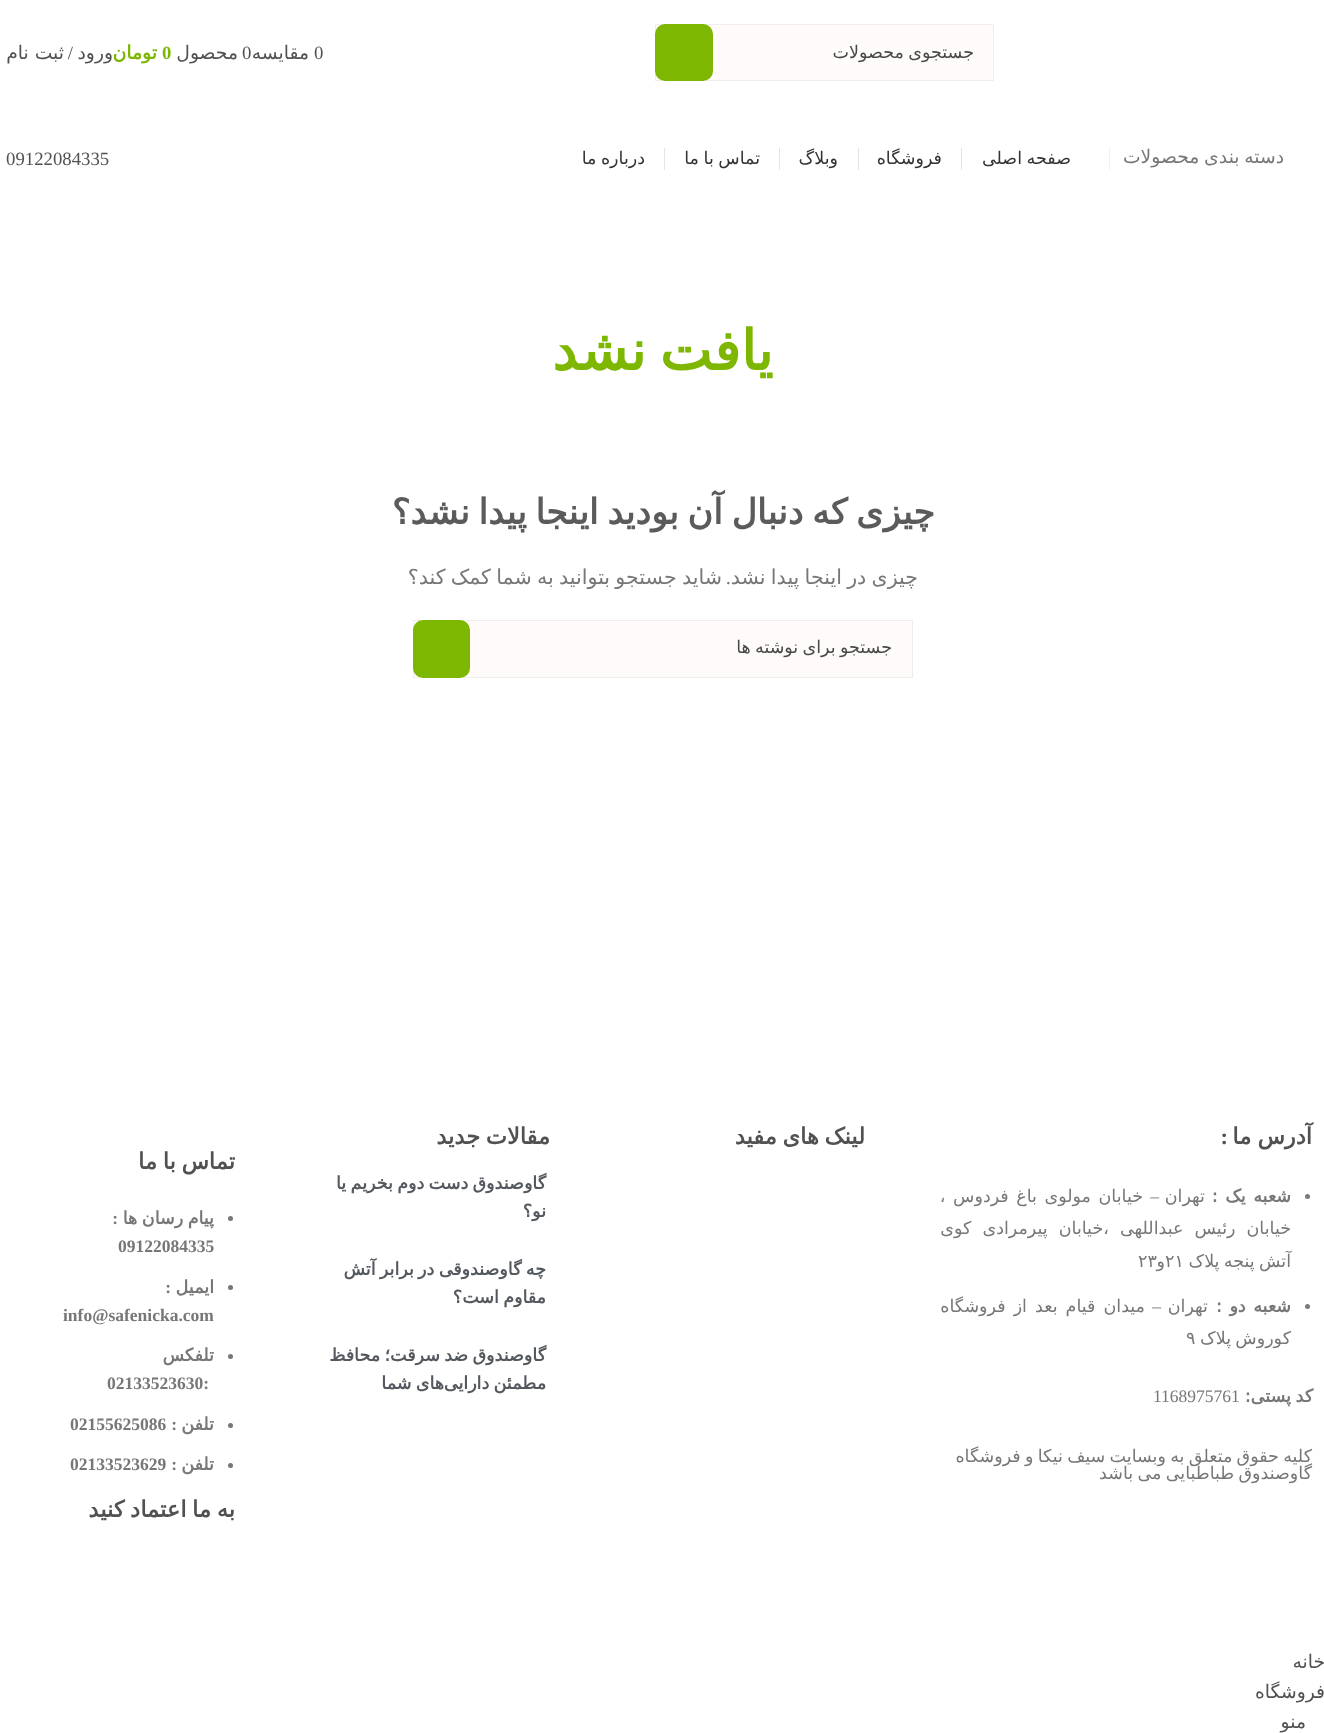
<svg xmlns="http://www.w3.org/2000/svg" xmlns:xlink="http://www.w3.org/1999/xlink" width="1324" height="1733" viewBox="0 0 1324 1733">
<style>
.cls-1{font:17.5px DejaVu Sans;direction:rtl;fill:#484848}
.cls-2{font:18.75px Liberation Serif;fill:#515151}
.cls-3{font:18.75px DejaVu Sans;direction:rtl;fill:#515151}
.cls-4{font:bold 18.75px Liberation Serif;fill:#7db701}
.cls-5{font:bold 18.75px DejaVu Sans;direction:rtl;fill:#7db701}
.cls-6{font:18.75px Liberation Serif;direction:rtl;fill:#515151}
.cls-7{font:18.75px DejaVu Sans;direction:rtl;fill:#777777}
.cls-8{font:17.5px DejaVu Sans;direction:rtl;fill:#333333}
.cls-9{font:bold 55.5px DejaVu Sans;direction:rtl;fill:#7db701}
.cls-10{font:bold 35px DejaVu Sans;direction:rtl;fill:#5b5b5b}
.cls-11{font:20.6px DejaVu Sans;direction:rtl;fill:#777777}
.cls-12{font:20.6px Liberation Serif;direction:rtl;fill:#777777}
.cls-13{font:bold 22.5px DejaVu Sans;direction:rtl;fill:#515151}
.cls-14{font:bold 22.5px Liberation Serif;direction:rtl;fill:#515151}
.cls-15{font:bold 17.5px DejaVu Sans;direction:rtl;fill:#777777}
.cls-16{font:17.5px DejaVu Sans;direction:rtl;fill:#777777}
.cls-17{font:17.5px Liberation Serif;direction:rtl;fill:#777777}
.cls-18{font:17.5px DejaVu Sans;fill:#777777}
.cls-19{font:17.5px Liberation Serif;fill:#777777}
.cls-20{font:bold 17.5px DejaVu Sans;direction:rtl;fill:#54595f}
.cls-21{font:bold 17.5px Liberation Serif;direction:rtl;fill:#777777}
.cls-22{font:bold 17.5px Liberation Serif;fill:#777777}
</style>
<rect width="100%" height="100%" fill="#ffffff"/>
<rect fill="#fffbfb" stroke="#f1eded" x="655.5" y="24.5" width="338" height="56"/>
<rect fill="#7db701" x="655" y="24" width="58" height="57" rx="10"/>
<rect fill="#f1f1f1" x="1109" y="148" width="1" height="22"/>
<rect fill="#e4e4e4" x="961" y="148" width="1" height="22"/>
<rect fill="#e4e4e4" x="858" y="148" width="1" height="22"/>
<rect fill="#e4e4e4" x="779" y="148" width="1" height="22"/>
<rect fill="#e4e4e4" x="664" y="148" width="1" height="22"/>
<rect fill="#fffbfb" stroke="#f1eded" x="413.5" y="620.5" width="499" height="57"/>
<rect fill="#7db701" x="413" y="620" width="57" height="58" rx="10"/>
<circle fill="#7a7a7a" cx="1307.5" cy="1196.5" r="2.5"/>
<circle fill="#7a7a7a" cx="1307.5" cy="1306.5" r="2.5"/>
<circle fill="#767676" cx="230.5" cy="1218.5" r="2.5"/>
<circle fill="#767676" cx="230.5" cy="1287.5" r="2.5"/>
<circle fill="#767676" cx="230.5" cy="1356.5" r="2.5"/>
<circle fill="#767676" cx="230.5" cy="1425.5" r="2.5"/>
<circle fill="#767676" cx="230.5" cy="1465.5" r="2.5"/>
<text class="cls-1" x="974" y="58" word-spacing="-1.25">جستجوی محصولات</text>
<text class="cls-2" x="314" y="59">0</text>
<text class="cls-3" x="309" y="59">مقایسه</text>
<text class="cls-2" x="242" y="59">0</text>
<text class="cls-3" x="238" y="59">محصول</text>
<text class="cls-4" x="162" y="59">0</text>
<text class="cls-5" x="157" y="59">تومان</text>
<text class="cls-3" x="113" y="59">ورود</text>
<text class="cls-6" x="73" y="59">/</text>
<text class="cls-3" x="64" y="59">ثبت نام</text>
<text class="cls-7" x="1284" y="163" word-spacing="-1.25">دسته بندی محصولات</text>
<text class="cls-8" x="1071" y="164" word-spacing="-1">صفحه اصلی</text>
<text class="cls-8" x="942" y="164">فروشگاه</text>
<text class="cls-8" x="838" y="164">وبلاگ</text>
<text class="cls-8" x="760" y="164" word-spacing="-1">تماس با ما</text>
<text class="cls-8" x="645" y="164" word-spacing="-1">درباره ما</text>
<text class="cls-2" x="6" y="165">09122084335</text>
<text class="cls-9" x="773" y="370" word-spacing="-4">یافت نشد</text>
<text class="cls-10" x="935" y="524" word-spacing="-2.5">چیزی که دنبال آن بودید اینجا پیدا نشد؟</text>
<text class="cls-11" x="918" y="584" word-spacing="-1.25">چیزی در اینجا پیدا نشد</text>
<text class="cls-12" x="731" y="584">.</text>
<text class="cls-11" x="722" y="584" word-spacing="-1.25">شاید جستجو بتوانید به شما کمک کند؟</text>
<text class="cls-1" x="892" y="653" word-spacing="-1.25">جستجو برای نوشته ها</text>
<text class="cls-13" x="1312" y="1144" word-spacing="-1">آدرس ما</text>
<text class="cls-14" x="1228" y="1144">:</text>
<text class="cls-15" x="1291" y="1202" word-spacing="2">شعبه یک :</text>
<text class="cls-16" x="1205" y="1202">تهران</text>
<text class="cls-17" x="1159" y="1202">–</text>
<text class="cls-16" x="1143" y="1202" word-spacing="2">خیابان مولوی باغ فردوس ،</text>
<text class="cls-16"><tspan x="1291" y="1234" word-spacing="5.5">خیابان رئیس عبداللهی ،خیابان پیرمرادی کوی</tspan><tspan x="1291" y="1267" word-spacing="-1.25">آتش پنجه پلاک</tspan></text>
<text class="cls-18" x="1165" y="1267">۲۱</text>
<text class="cls-18" x="1138" y="1267">۲۳</text>
<text class="cls-16" x="1165" y="1267">و</text>
<text class="cls-15" x="1291" y="1312" word-spacing="2">شعبه دو :</text>
<text class="cls-16" x="1208" y="1312">تهران</text>
<text class="cls-17" x="1161" y="1312">–</text>
<text class="cls-16" x="1145" y="1312" word-spacing="2.5">میدان قیام بعد از فروشگاه</text>
<text class="cls-16" x="1291" y="1344" word-spacing="-1.25">کوروش پلاک</text>
<text class="cls-18" x="1186" y="1344">۹</text>
<text class="cls-15" x="1313" y="1402" word-spacing="-1">کد پستی:</text>
<text class="cls-19" x="1153" y="1402">1168975761</text>
<text class="cls-16"><tspan x="1312" y="1462" word-spacing="-1.25">کلیه حقوق متعلق به وبسایت سیف نیکا و فروشگاه</tspan><tspan x="1312" y="1479" word-spacing="-1.25">گاوصندوق طباطبایی می باشد</tspan></text>
<text class="cls-13" x="865" y="1144" word-spacing="-1.5">لینک های مفید</text>
<text class="cls-13" x="550" y="1144" word-spacing="-1.5">مقالات جدید</text>
<text class="cls-20"><tspan x="546" y="1189" word-spacing="-1.25">گاوصندوق دست دوم بخریم یا</tspan><tspan x="546" y="1217">نو؟</tspan></text>
<text class="cls-20"><tspan x="546" y="1275" word-spacing="-1.25">چه گاوصندوقی در برابر آتش</tspan><tspan x="546" y="1303" word-spacing="-1.25">مقاوم است؟</tspan></text>
<text class="cls-20"><tspan x="546" y="1361" word-spacing="-1.25">گاوصندوق ضد سرقت؛ محافظ</tspan><tspan x="546" y="1389" word-spacing="-1.25">مطمئن دارایی</tspan></text>
<text class="cls-20" x="444" y="1389" word-spacing="-1.25">های شما</text>
<text class="cls-13" x="235" y="1169" word-spacing="-1.5">تماس با ما</text>
<text class="cls-15" x="214" y="1224" word-spacing="-1">پیام رسان ها</text>
<text class="cls-21" x="118" y="1224">:</text>
<text class="cls-22" x="118" y="1252">09122084335</text>
<text class="cls-15" x="214" y="1293">ایمیل</text>
<text class="cls-21" x="171" y="1293">:</text>
<text class="cls-22" x="63" y="1321">info@safenicka.com</text>
<text class="cls-15" x="214" y="1361">تلفکس</text>
<text class="cls-22" x="107" y="1389">02133523630:</text>
<text class="cls-15" x="214" y="1430">تلفن</text>
<text class="cls-21" x="177" y="1430">:</text>
<text class="cls-22" x="70" y="1430">02155625086</text>
<text class="cls-15" x="214" y="1470">تلفن</text>
<text class="cls-21" x="177" y="1470">:</text>
<text class="cls-22" x="70" y="1470">02133523629</text>
<text class="cls-13" x="235" y="1517" word-spacing="-1.5">به ما اعتماد کنید</text>
<text class="cls-3"><tspan x="1325" y="1668">خانه</tspan><tspan x="1325" y="1698">فروشگاه</tspan></text>
<text class="cls-3" x="1306" y="1728">منو</text>
</svg>
